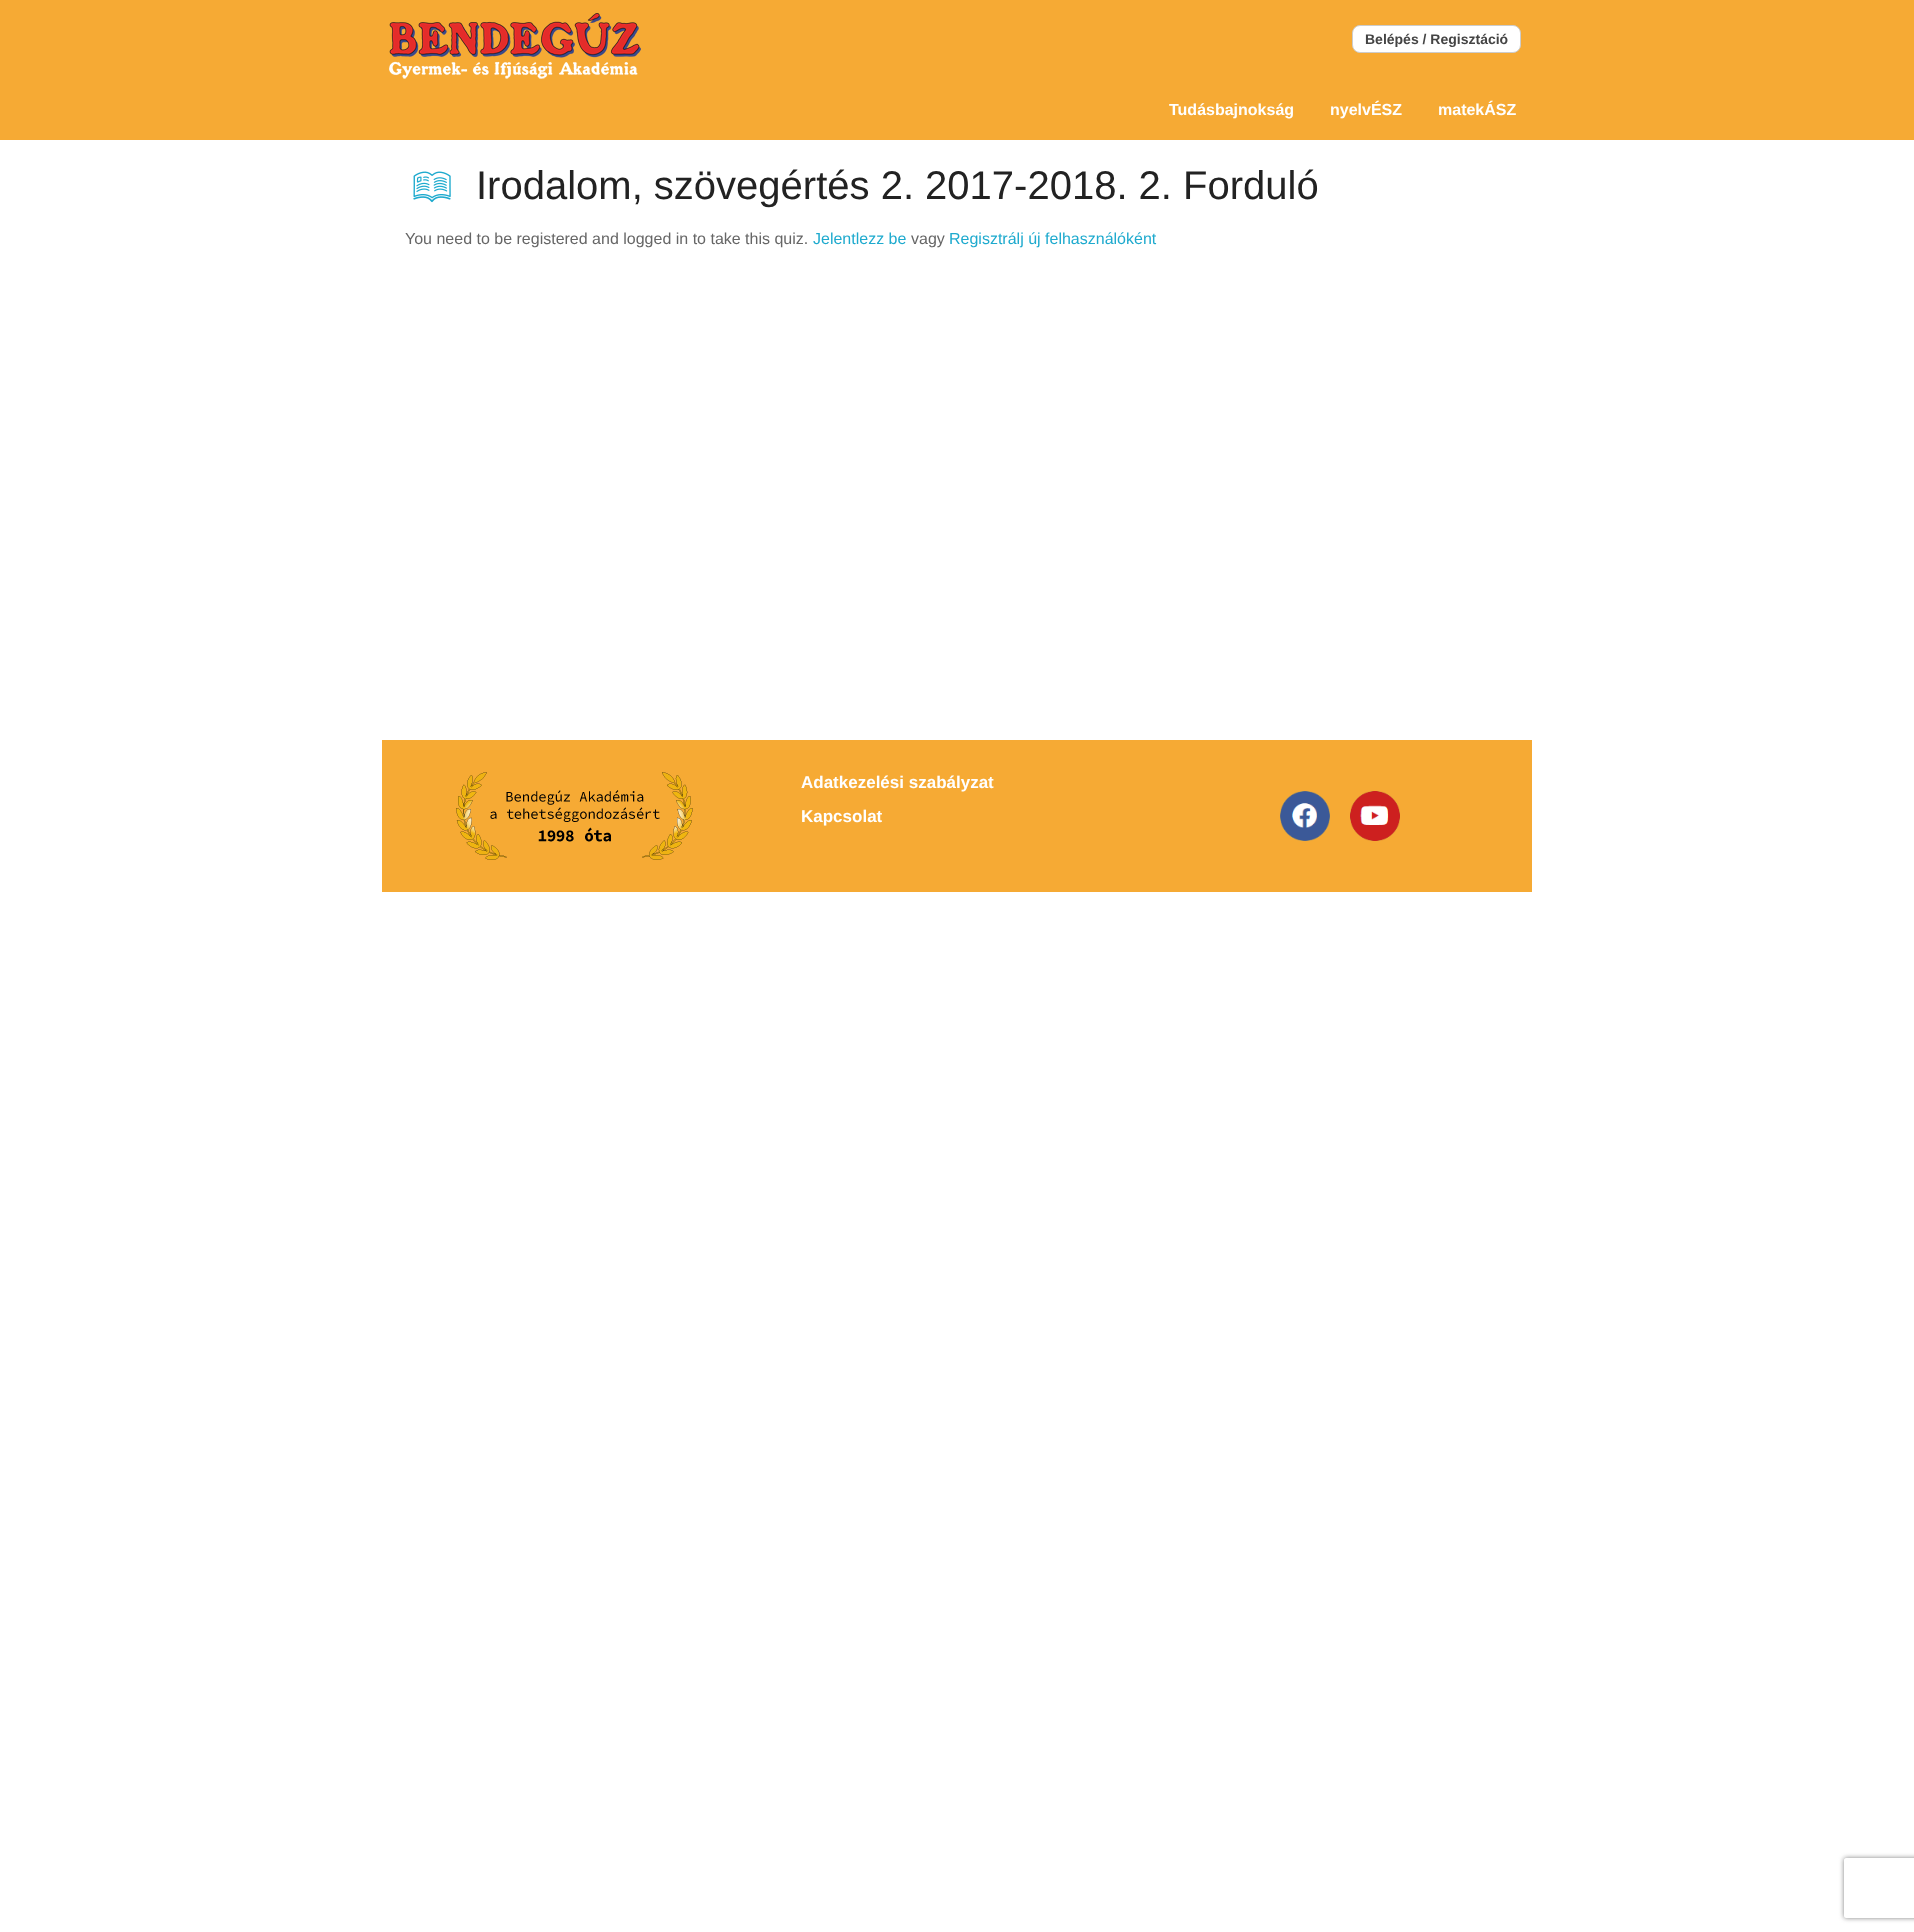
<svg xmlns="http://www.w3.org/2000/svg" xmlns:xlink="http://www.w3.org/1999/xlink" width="1914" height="1932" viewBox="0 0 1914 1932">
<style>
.cls-1{font:bold 14px Liberation Sans;fill:#444444}
.cls-2{font:bold 16px Liberation Sans;fill:#ffffff}
.cls-3{font:40px Liberation Sans;fill:#222222}
.cls-4{font:16px Liberation Sans;fill:#666666}
.cls-5{font:16px Liberation Sans;fill:#1eaace}
.cls-6{font:bold 17px Liberation Sans;fill:#ffffff}
</style>
<defs>
<clipPath id="clip1"><path d="M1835 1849H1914V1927H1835ZM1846 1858H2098C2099 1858 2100 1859 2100 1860V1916C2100 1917 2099 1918 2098 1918H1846C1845 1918 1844 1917 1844 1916V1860C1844 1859 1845 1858 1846 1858Z" clip-rule="evenodd"/></clipPath>
</defs>
<rect width="100%" height="100%" fill="#ffffff"/>
<rect fill="#f6aa34" x="0" y="0" width="1914" height="140"/>
<image xlink:href="image0.png" x="389" y="13" width="252" height="66"/>
<rect fill="#ffffff" stroke="#cccccc" x="1352.5" y="25.5" width="168" height="27" rx="7.5"/>
<image xlink:href="image1.png" x="413" y="171" width="38" height="32"/>
<rect fill="#f6aa34" x="382" y="740" width="1150" height="152"/>
<image xlink:href="image2.png" x="456" y="772" width="237" height="88"/>
<image xlink:href="image3.png" x="1280" y="791" width="50" height="50"/>
<image xlink:href="image4.png" x="1350" y="791" width="50" height="50"/>
<g clip-path="url(#clip1)">
<rect fill="#808080" filter="blur(2.5px)" x="1844" y="1858" width="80" height="60" rx="2"/>
</g>
<text class="cls-1" x="1365" y="44">Belépés / Regisztáció</text>
<text class="cls-2" x="1169" y="115">Tudásbajnokság</text>
<text class="cls-2" x="1330" y="115">nyelvÉSZ</text>
<text class="cls-2" x="1438" y="115">matekÁSZ</text>
<text class="cls-3" x="476" y="199">Irodalom, szövegértés 2. 2017-2018. 2. Forduló</text>
<text class="cls-4" x="405" y="244">You need to be registered and logged in to take this quiz.</text>
<text class="cls-5" x="813" y="244">Jelentlezz be</text>
<text class="cls-4" x="911" y="244">vagy</text>
<text class="cls-5" x="949" y="244">Regisztrálj új felhasználóként</text>
<text class="cls-6" x="801" y="788">Adatkezelési szabályzat</text>
<text class="cls-6" x="801" y="822">Kapcsolat</text>
</svg>
